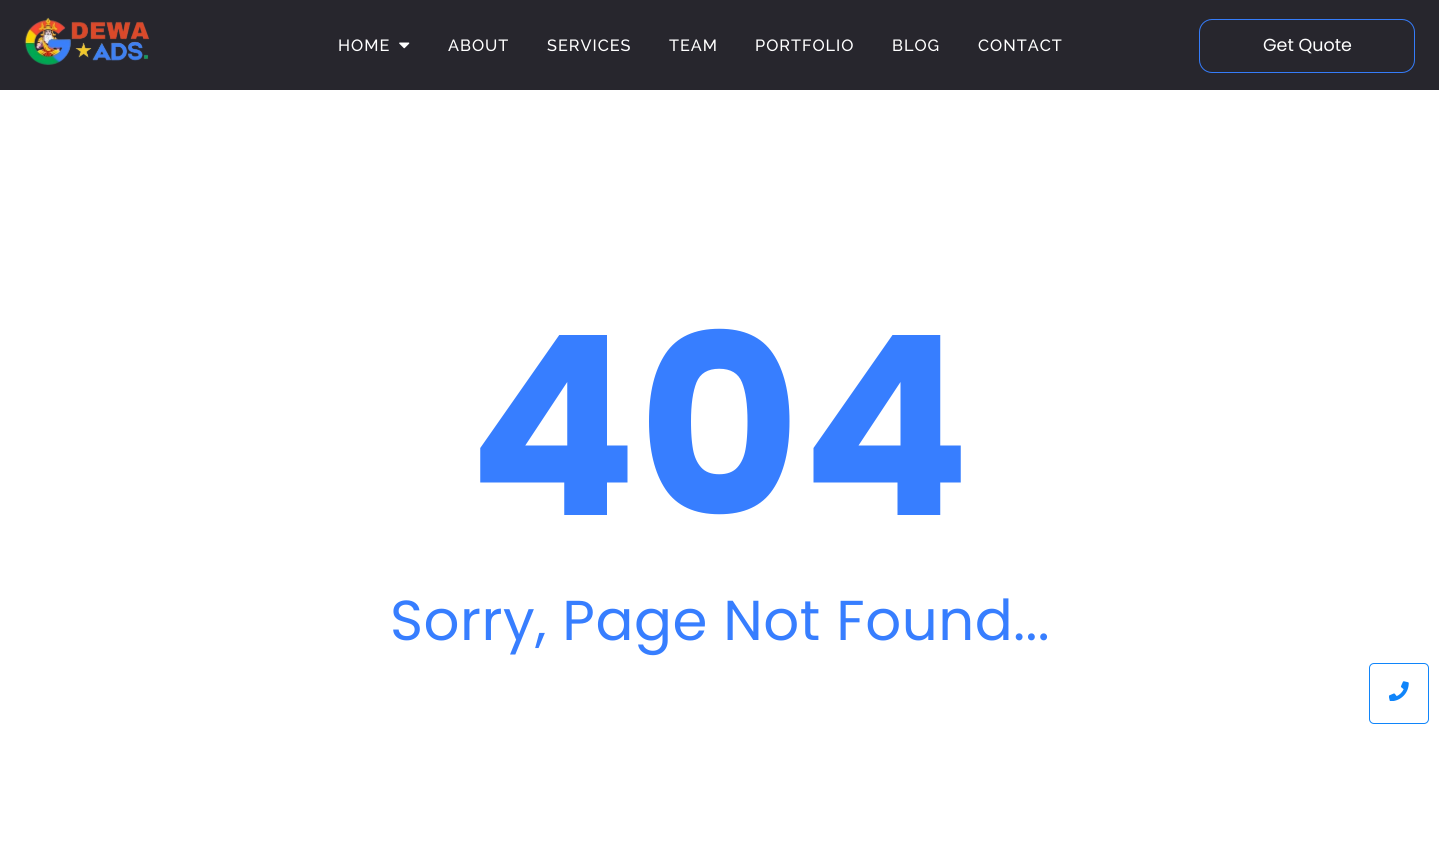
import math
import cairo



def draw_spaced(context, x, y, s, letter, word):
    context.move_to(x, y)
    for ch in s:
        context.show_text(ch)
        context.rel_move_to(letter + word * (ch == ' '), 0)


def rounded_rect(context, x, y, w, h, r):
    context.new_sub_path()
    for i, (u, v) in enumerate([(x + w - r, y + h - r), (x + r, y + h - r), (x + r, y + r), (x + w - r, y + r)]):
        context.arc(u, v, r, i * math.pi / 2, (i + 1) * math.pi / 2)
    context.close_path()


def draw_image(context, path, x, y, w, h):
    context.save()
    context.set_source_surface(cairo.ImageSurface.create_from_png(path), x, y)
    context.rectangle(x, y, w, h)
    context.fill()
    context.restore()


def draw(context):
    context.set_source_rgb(1, 1, 1)
    context.paint()
    context.set_source_rgb(39 / 255, 38 / 255, 45 / 255)
    context.rectangle(0, 0, 1439, 90)
    context.fill()
    draw_image(context, "images/1.png", 24, 17, 126, 48)
    draw_image(context, "images/2.png", 399, 42, 11, 7)
    rounded_rect(context, 1199.5, 19.5, 215, 53, 12.5)
    context.set_source_rgb(53 / 255, 124 / 255, 249 / 255)
    context.set_line_width(1)
    context.stroke()
    rounded_rect(context, 1369.5, 663.5, 59, 60, 4.5)
    context.set_source_rgb(16 / 255, 133 / 255, 250 / 255)
    context.stroke()
    draw_image(context, "images/3.png", 1389, 681, 20, 20)
    context.select_font_face("Raleway Medium")
    context.set_font_size(16.25)
    context.set_source_rgb(1, 1, 1)
    draw_spaced(context, 338, 51, "HOME", 1, 0)
    draw_spaced(context, 448, 51, "ABOUT", 1, 0)
    draw_spaced(context, 547, 51, "SERVICES", 1, 0)
    draw_spaced(context, 669, 51, "TEAM", 1, 0)
    draw_spaced(context, 755, 51, "PORTFOLIO", 1, 0)
    draw_spaced(context, 892, 51, "BLOG", 1, 0)
    draw_spaced(context, 978, 51, "CONTACT", 1, 0)
    context.select_font_face("Poppins")
    context.set_font_size(17.5)
    context.move_to(1263, 51)
    context.show_text("Get Quote")
    context.select_font_face("Poppins", cairo.FontSlant.NORMAL, cairo.FontWeight.BOLD)
    context.set_font_size(250)
    context.set_source_rgb(55 / 255, 126 / 255, 1)
    draw_spaced(context, 468, 515, "404", 0.5, 0)
    context.select_font_face("Poppins")
    context.set_font_size(56.25)
    draw_spaced(context, 390, 640, "Sorry, Page Not Found...", 0.5, 0)


surface = cairo.ImageSurface(cairo.Format.RGB24, 1439, 846)
context = cairo.Context(surface)
options = cairo.FontOptions()
options.set_hint_metrics(cairo.HintMetrics.OFF)
options.set_hint_style(cairo.HintStyle.NONE)
context.set_font_options(options)
context.set_miter_limit(4)
draw(context)
surface.write_to_png("out.png")
